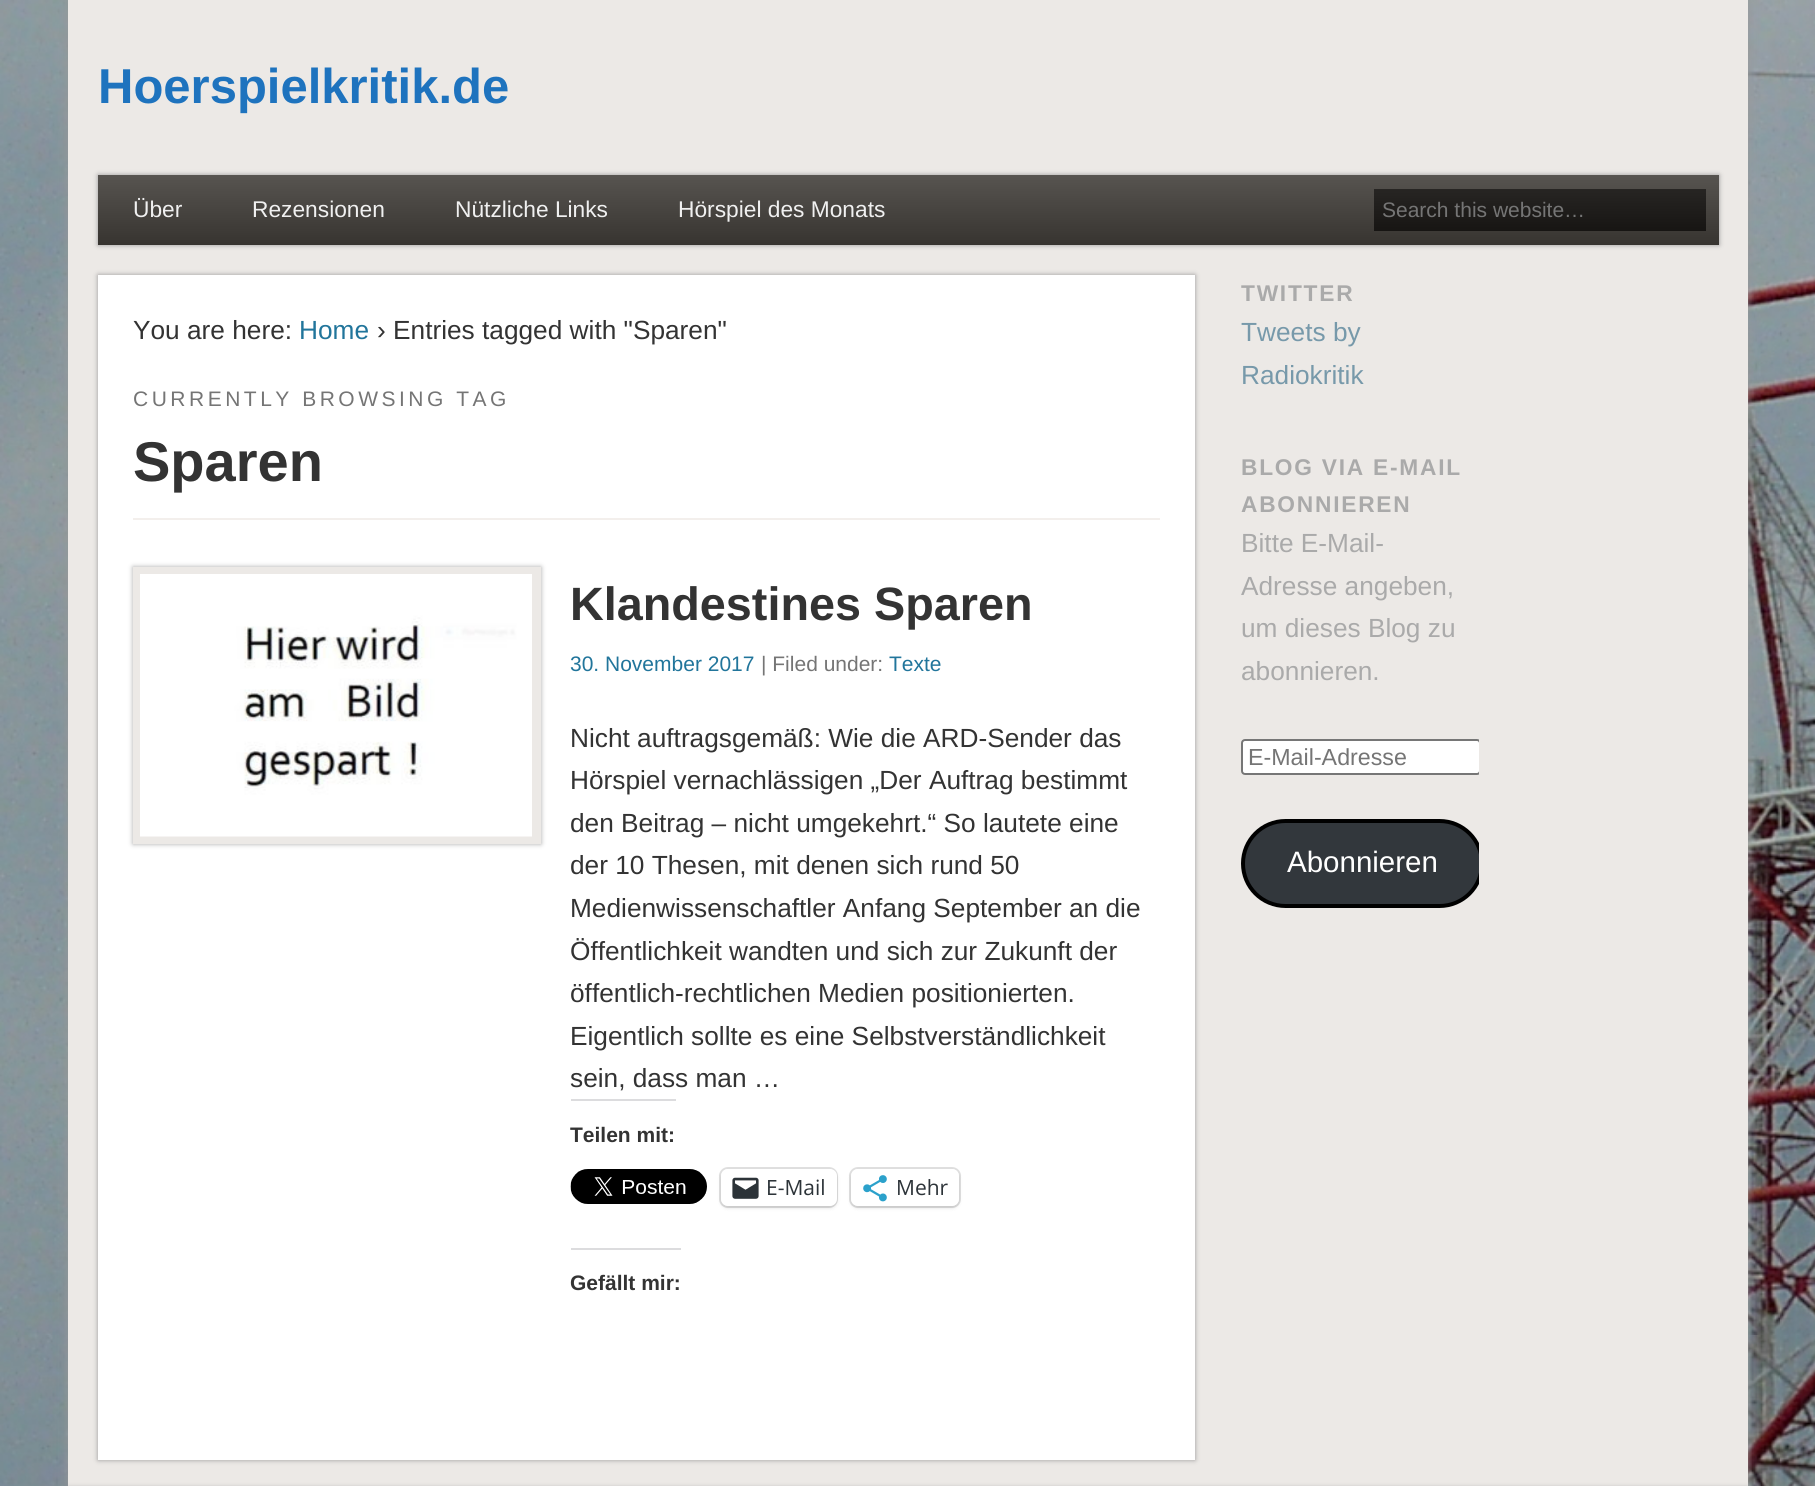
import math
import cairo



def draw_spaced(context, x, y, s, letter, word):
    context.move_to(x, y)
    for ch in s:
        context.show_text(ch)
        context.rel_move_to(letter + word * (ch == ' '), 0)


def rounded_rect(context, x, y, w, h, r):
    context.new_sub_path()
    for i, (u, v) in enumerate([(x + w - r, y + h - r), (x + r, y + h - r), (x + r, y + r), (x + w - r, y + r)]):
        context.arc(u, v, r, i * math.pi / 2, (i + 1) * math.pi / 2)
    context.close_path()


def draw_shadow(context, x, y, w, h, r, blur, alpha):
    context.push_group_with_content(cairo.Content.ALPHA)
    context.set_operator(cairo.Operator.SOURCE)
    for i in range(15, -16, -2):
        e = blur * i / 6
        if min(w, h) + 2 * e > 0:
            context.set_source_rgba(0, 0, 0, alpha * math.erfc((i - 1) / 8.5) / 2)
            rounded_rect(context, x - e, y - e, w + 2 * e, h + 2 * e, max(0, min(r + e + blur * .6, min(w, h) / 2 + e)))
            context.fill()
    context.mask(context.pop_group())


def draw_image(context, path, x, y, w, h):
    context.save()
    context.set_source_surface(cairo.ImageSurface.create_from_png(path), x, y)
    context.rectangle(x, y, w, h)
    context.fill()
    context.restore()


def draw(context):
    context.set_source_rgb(1, 1, 1)
    context.paint()
    draw_image(context, "images/1.png", 0, 0, 1815, 1486)
    context.set_source_rgb(153 / 255, 153 / 255, 153 / 255)
    draw_shadow(context, 68, 0, 1680, 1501, 0, 5, 1)
    context.set_source_rgb(236 / 255, 233 / 255, 230 / 255)
    context.rectangle(68, 0, 1680, 1486)
    context.fill()
    context.set_source_rgb(153 / 255, 153 / 255, 153 / 255)
    draw_shadow(context, 98, 175, 1621, 70, 0, 2.5, 1)
    gradient = cairo.LinearGradient(908, 175, 908, 315)
    gradient.add_color_stop_rgba(0, 87 / 255, 84 / 255, 80 / 255, 1)
    gradient.add_color_stop_rgba(0.5, 55 / 255, 52 / 255, 48 / 255, 1)
    gradient.add_color_stop_rgba(0.5, 87 / 255, 84 / 255, 80 / 255, 1)
    gradient.add_color_stop_rgba(1, 55 / 255, 52 / 255, 48 / 255, 1)
    context.set_source(gradient)
    context.rectangle(98, 175, 1621, 70)
    context.fill()
    gradient = cairo.LinearGradient(1540, 189, 1540, 231)
    gradient.add_color_stop_rgba(0, 39 / 255, 37 / 255, 35 / 255, 1)
    gradient.add_color_stop_rgba(1, 23 / 255, 21 / 255, 19 / 255, 1)
    context.set_source(gradient)
    context.rectangle(1374, 189, 332, 42)
    context.fill()
    context.set_source_rgb(153 / 255, 153 / 255, 153 / 255)
    draw_shadow(context, 98, 275, 1097, 1185, 0, 2.5, 1)
    context.set_source_rgb(1, 1, 1)
    context.rectangle(98, 275, 1097, 1185)
    context.fill()
    context.set_source_rgb(243 / 255, 239 / 255, 236 / 255)
    context.rectangle(133, 518, 1027, 2)
    context.fill()
    context.set_source_rgb(170 / 255, 170 / 255, 170 / 255)
    draw_shadow(context, 133, 567, 408, 277, 0, 2.5, 1)
    context.set_source_rgb(236 / 255, 233 / 255, 230 / 255)
    context.rectangle(133, 567, 408, 277)
    context.fill()
    draw_image(context, "images/2.png", 140, 574, 392, 263)
    context.set_source_rgb(220 / 255, 220 / 255, 222 / 255)
    context.rectangle(571, 1099, 105, 2)
    context.fill()
    draw_image(context, "images/3.png", 570, 1169, 137, 35)
    rounded_rect(context, 720, 1168, 117, 39, 8)
    context.set_source_rgb(224 / 255, 224 / 255, 224 / 255)
    context.stroke()
    context.set_source_rgb(0, 0, 0)
    draw_shadow(context, 721, 1171, 116, 37, 7, 2, 0.12)
    context.set_source_rgb(1, 1, 1)
    rounded_rect(context, 721, 1169, 116, 37, 7)
    context.fill()
    draw_image(context, "images/4.png", 732, 1177, 27, 22)
    rounded_rect(context, 850, 1168, 110, 39, 8)
    context.set_source_rgb(224 / 255, 224 / 255, 224 / 255)
    context.stroke()
    context.set_source_rgb(0, 0, 0)
    draw_shadow(context, 851, 1171, 108, 37, 7, 2, 0.12)
    context.set_source_rgb(1, 1, 1)
    rounded_rect(context, 851, 1169, 108, 37, 7)
    context.fill()
    draw_image(context, "images/5.png", 863, 1175, 24, 27)
    context.set_source_rgb(220 / 255, 220 / 255, 222 / 255)
    context.rectangle(571, 1248, 110, 2)
    context.fill()
    context.save()
    context.rectangle(1241, 450, 238, 500)
    context.clip()
    context.set_source_rgb(1, 1, 1)
    rounded_rect(context, 1242, 740, 238, 34, 3)
    context.fill_preserve()
    context.set_source_rgb(118 / 255, 118 / 255, 118 / 255)
    context.stroke()
    context.set_source_rgb(50 / 255, 55 / 255, 60 / 255)
    rounded_rect(context, 1243, 821, 239, 85, 42.5)
    context.fill_preserve()
    context.set_source_rgb(0, 0, 0)
    context.set_line_width(4)
    context.stroke()
    context.restore()
    context.save()
    context.rectangle(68, 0, 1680, 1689)
    context.clip()
    context.set_source_rgb(153 / 255, 153 / 255, 153 / 255)
    draw_shadow(context, 68, 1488, 1680, 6, 0, 2.5, 1)
    context.restore()
    context.select_font_face("Liberation Sans", cairo.FontSlant.NORMAL, cairo.FontWeight.BOLD)
    context.set_font_size(49)
    context.set_source_rgb(30 / 255, 115 / 255, 190 / 255)
    context.move_to(98, 103)
    context.show_text("Hoerspielkritik.de")
    context.select_font_face("Liberation Sans")
    context.set_font_size(22.75)
    context.set_source_rgb(240 / 255, 240 / 255, 240 / 255)
    context.move_to(133, 217)
    context.show_text("Über")
    context.move_to(252, 217)
    context.show_text("Rezensionen")
    context.move_to(455, 217)
    context.show_text("Nützliche Links")
    context.move_to(678, 217)
    context.show_text("Hörspiel des Monats")
    context.set_font_size(21)
    context.set_source_rgb(117 / 255, 117 / 255, 117 / 255)
    context.move_to(1382, 217)
    context.show_text("Search this website…")
    context.set_font_size(26.25)
    context.set_source_rgb(51 / 255, 51 / 255, 51 / 255)
    context.move_to(133, 339)
    context.show_text("You are here:")
    context.set_source_rgb(33 / 255, 117 / 255, 155 / 255)
    context.move_to(299, 339)
    context.show_text("Home")
    context.set_source_rgb(51 / 255, 51 / 255, 51 / 255)
    context.move_to(377, 339)
    context.show_text("› Entries tagged with \"Sparen\"")
    context.set_font_size(21)
    context.set_source_rgb(117 / 255, 117 / 255, 117 / 255)
    draw_spaced(context, 133, 406, "CURRENTLY BROWSING TAG", 3.5, 0)
    context.select_font_face("Liberation Sans", cairo.FontSlant.NORMAL, cairo.FontWeight.BOLD)
    context.set_font_size(56)
    context.set_source_rgb(51 / 255, 51 / 255, 51 / 255)
    context.move_to(133, 481)
    context.show_text("Sparen")
    context.set_font_size(46.75)
    context.move_to(570, 620)
    context.show_text("Klandestines Sparen")
    context.select_font_face("Liberation Sans")
    context.set_font_size(21)
    context.set_source_rgb(33 / 255, 117 / 255, 155 / 255)
    context.move_to(570, 671)
    context.show_text("30. November 2017")
    context.set_source_rgb(117 / 255, 117 / 255, 117 / 255)
    context.move_to(761, 671)
    context.show_text("| Filed under:")
    context.set_source_rgb(33 / 255, 117 / 255, 155 / 255)
    context.move_to(889, 671)
    context.show_text("Texte")
    context.set_font_size(26.25)
    context.set_source_rgb(51 / 255, 51 / 255, 51 / 255)
    context.move_to(570, 747)
    context.show_text("Nicht auftragsgemäß: Wie die ARD-Sender das")
    context.move_to(570, 789)
    context.show_text("Hörspiel vernachlässigen „Der Auftrag bestimmt")
    context.move_to(570, 832)
    context.show_text("den Beitrag – nicht umgekehrt.“ So lautete eine")
    context.move_to(570, 874)
    context.show_text("der 10 Thesen, mit denen sich rund 50")
    context.move_to(570, 917)
    context.show_text("Medienwissenschaftler Anfang September an die")
    context.move_to(570, 960)
    context.show_text("Öffentlichkeit wandten und sich zur Zukunft der")
    context.move_to(570, 1002)
    context.show_text("öffentlich-rechtlichen Medien positionierten.")
    context.move_to(570, 1045)
    context.show_text("Eigentlich sollte es eine Selbstverständlichkeit")
    context.move_to(570, 1087)
    context.show_text("sein, dass man …")
    context.select_font_face("Liberation Sans", cairo.FontSlant.NORMAL, cairo.FontWeight.BOLD)
    context.set_font_size(21)
    context.move_to(570, 1142)
    context.show_text("Teilen mit:")
    context.select_font_face("Open Sans")
    context.set_source_rgb(44 / 255, 51 / 255, 56 / 255)
    context.move_to(766, 1195)
    context.show_text("E-Mail")
    context.move_to(896, 1195)
    context.show_text("Mehr")
    context.select_font_face("Liberation Sans", cairo.FontSlant.NORMAL, cairo.FontWeight.BOLD)
    context.set_source_rgb(51 / 255, 51 / 255, 51 / 255)
    context.move_to(570, 1290)
    context.show_text("Gefällt mir:")
    context.set_font_size(22.75)
    context.set_source_rgb(170 / 255, 170 / 255, 170 / 255)
    draw_spaced(context, 1241, 301, "TWITTER", 1.75, 0)
    context.select_font_face("Liberation Sans")
    context.set_font_size(26.25)
    context.set_source_rgb(119 / 255, 153 / 255, 170 / 255)
    context.move_to(1241, 341)
    context.show_text("Tweets by")
    context.move_to(1241, 384)
    context.show_text("Radiokritik")
    context.select_font_face("Liberation Sans", cairo.FontSlant.NORMAL, cairo.FontWeight.BOLD)
    context.set_font_size(22.75)
    context.set_source_rgb(170 / 255, 170 / 255, 170 / 255)
    draw_spaced(context, 1241, 475, "BLOG VIA E-MAIL", 1.75, 0)
    draw_spaced(context, 1241, 512, "ABONNIEREN", 1.75, 0)
    context.select_font_face("Liberation Sans")
    context.set_font_size(26.25)
    context.move_to(1241, 552)
    context.show_text("Bitte E-Mail-")
    context.move_to(1241, 595)
    context.show_text("Adresse angeben,")
    context.move_to(1241, 637)
    context.show_text("um dieses Blog zu")
    context.move_to(1241, 680)
    context.show_text("abonnieren.")
    context.set_font_size(23.25)
    context.set_source_rgb(117 / 255, 117 / 255, 117 / 255)
    context.move_to(1248, 765)
    context.show_text("E-Mail-Adresse")
    context.set_font_size(29.5)
    context.set_source_rgb(1, 1, 1)
    context.move_to(1287, 872)
    context.show_text("Abonnieren")


surface = cairo.ImageSurface(cairo.Format.RGB24, 1815, 1486)
context = cairo.Context(surface)
options = cairo.FontOptions()
options.set_hint_metrics(cairo.HintMetrics.OFF)
options.set_hint_style(cairo.HintStyle.NONE)
context.set_font_options(options)
context.set_miter_limit(4)
draw(context)
surface.write_to_png("out.png")
